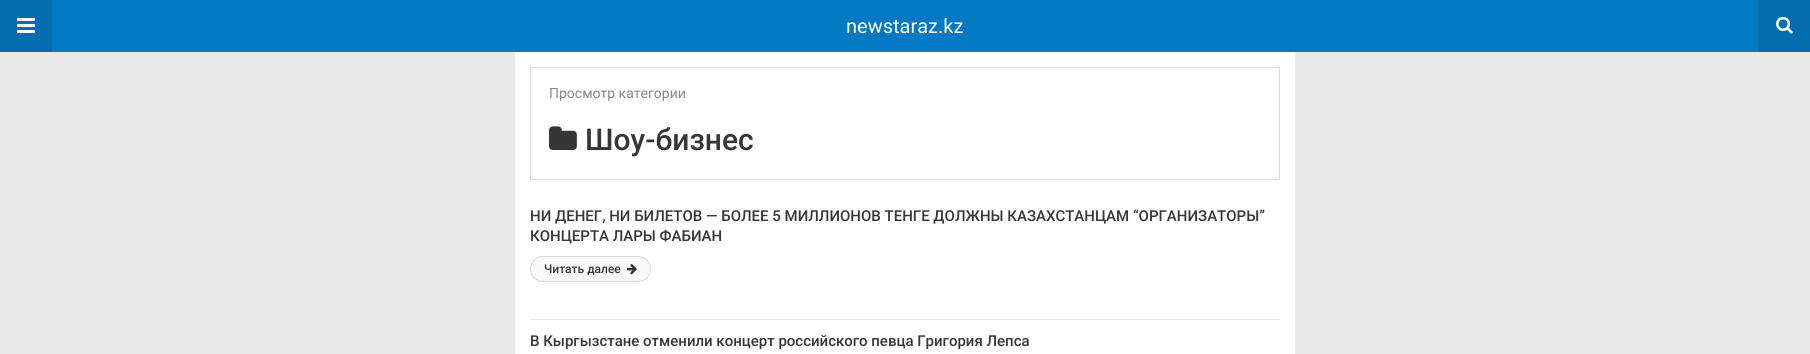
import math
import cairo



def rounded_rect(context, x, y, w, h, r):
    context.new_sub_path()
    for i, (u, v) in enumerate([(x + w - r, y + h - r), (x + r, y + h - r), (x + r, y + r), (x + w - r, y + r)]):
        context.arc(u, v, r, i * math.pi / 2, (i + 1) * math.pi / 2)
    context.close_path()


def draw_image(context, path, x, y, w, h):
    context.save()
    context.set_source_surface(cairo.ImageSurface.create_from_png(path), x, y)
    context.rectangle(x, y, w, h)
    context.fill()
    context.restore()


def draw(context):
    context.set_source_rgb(232 / 255, 232 / 255, 232 / 255)
    context.paint()
    context.set_source_rgb(1, 1, 1)
    context.rectangle(515, 52, 780, 302)
    context.fill()
    context.set_source_rgb(3 / 255, 121 / 255, 196 / 255)
    context.rectangle(52, 0, 1706, 52)
    context.fill()
    context.set_source_rgb(3 / 255, 109 / 255, 176 / 255)
    context.rectangle(0, 0, 52, 52)
    context.fill()
    draw_image(context, "images/1.png", 17, 18, 18, 15)
    context.rectangle(1758, 0, 52, 52)
    context.fill()
    draw_image(context, "images/2.png", 1776, 16, 17, 18)
    context.rectangle(530.5, 67.5, 749, 112)
    context.set_source_rgb(220 / 255, 220 / 255, 220 / 255)
    context.set_line_width(1)
    context.stroke()
    draw_image(context, "images/3.png", 549, 126, 28, 24)
    context.set_source_rgb(230 / 255, 230 / 255, 230 / 255)
    context.rectangle(530, 319, 750, 1)
    context.fill()
    context.set_source_rgb(249 / 255, 249 / 255, 249 / 255)
    rounded_rect(context, 530.5, 256.5, 120, 25, 12.5)
    context.fill_preserve()
    context.set_source_rgb(216 / 255, 216 / 255, 216 / 255)
    context.stroke()
    draw_image(context, "images/4.png", 627, 264, 10, 11)
    context.select_font_face("Roboto")
    context.set_font_size(20)
    context.set_source_rgb(1, 1, 1)
    context.move_to(846, 33)
    context.show_text("newstaraz.kz")
    context.set_font_size(14)
    context.set_source_rgb(134 / 255, 134 / 255, 134 / 255)
    context.move_to(549, 98)
    context.show_text("Просмотр категории")
    context.select_font_face("Roboto Medium")
    context.set_font_size(30)
    context.set_source_rgb(54 / 255, 54 / 255, 54 / 255)
    context.move_to(585, 150)
    context.show_text("Шоу-бизнес")
    context.set_font_size(15)
    context.move_to(530, 221)
    context.show_text("НИ ДЕНЕГ, НИ БИЛЕТОВ — БОЛЕЕ 5 МИЛЛИОНОВ ТЕНГЕ ДОЛЖНЫ КАЗАХСТАНЦАМ “ОРГАНИЗАТОРЫ”")
    context.move_to(530, 241)
    context.show_text("КОНЦЕРТА ЛАРЫ ФАБИАН")
    context.set_font_size(12)
    context.move_to(544, 273)
    context.show_text("Читать далее")
    context.set_font_size(15)
    context.move_to(530, 346)
    context.show_text("В Кыргызстане отменили концерт российского певца Григория Лепса")


surface = cairo.ImageSurface(cairo.Format.RGB24, 1810, 354)
context = cairo.Context(surface)
options = cairo.FontOptions()
options.set_hint_metrics(cairo.HintMetrics.OFF)
options.set_hint_style(cairo.HintStyle.NONE)
context.set_font_options(options)
context.set_miter_limit(4)
draw(context)
surface.write_to_png("out.png")
